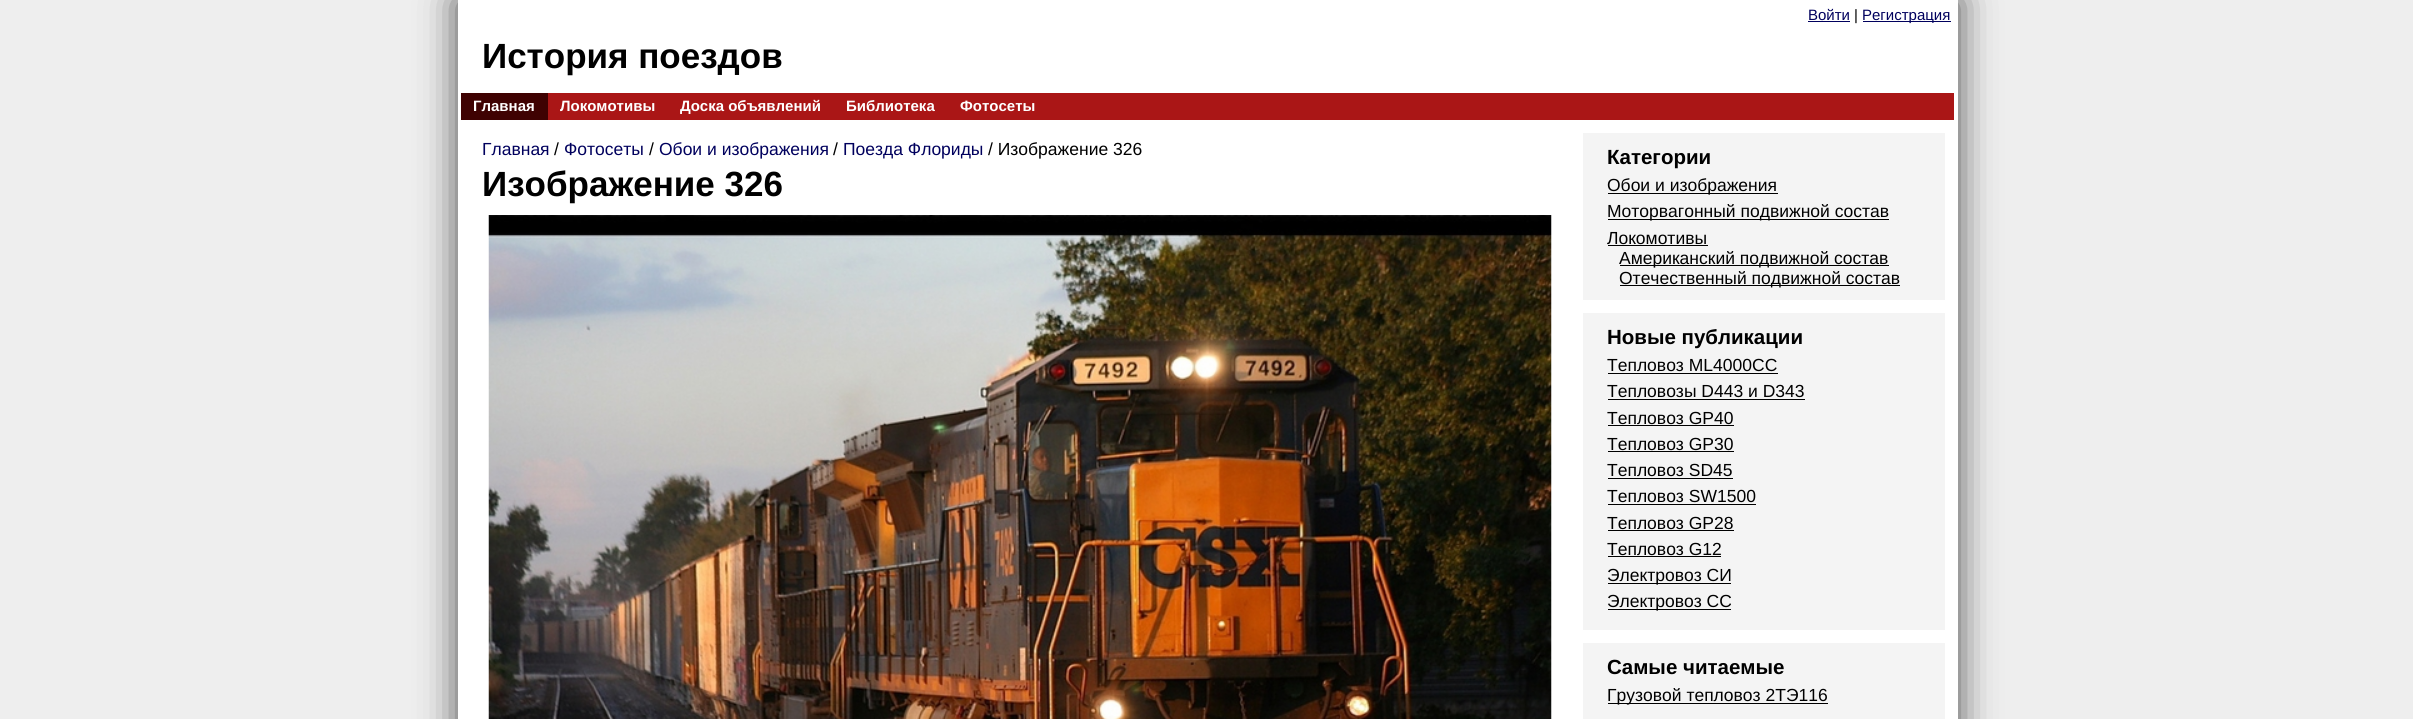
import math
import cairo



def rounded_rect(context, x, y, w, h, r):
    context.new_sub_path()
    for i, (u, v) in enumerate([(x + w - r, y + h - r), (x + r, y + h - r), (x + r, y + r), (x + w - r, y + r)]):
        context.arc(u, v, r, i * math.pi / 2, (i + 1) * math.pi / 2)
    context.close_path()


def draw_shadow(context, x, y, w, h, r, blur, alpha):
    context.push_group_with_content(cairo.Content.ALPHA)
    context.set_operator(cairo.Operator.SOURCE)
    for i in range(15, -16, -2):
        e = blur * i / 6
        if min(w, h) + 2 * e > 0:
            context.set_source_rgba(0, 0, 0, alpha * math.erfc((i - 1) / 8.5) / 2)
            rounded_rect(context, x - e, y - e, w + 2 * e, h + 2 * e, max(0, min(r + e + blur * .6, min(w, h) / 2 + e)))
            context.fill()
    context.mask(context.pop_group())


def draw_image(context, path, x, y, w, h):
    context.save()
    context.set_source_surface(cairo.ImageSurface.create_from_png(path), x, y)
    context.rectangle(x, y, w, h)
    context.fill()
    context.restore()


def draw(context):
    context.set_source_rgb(238 / 255, 238 / 255, 238 / 255)
    context.paint()
    context.set_source_rgb(3 / 255, 3 / 255, 3 / 255)
    draw_shadow(context, 458, 0, 1500, 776, 0, 19, 0.7)
    context.set_source_rgb(1, 1, 1)
    context.rectangle(458, 0, 1500, 719)
    context.fill()
    context.set_source_rgb(0, 0, 93 / 255)
    context.rectangle(1808, 21, 42, 1)
    context.fill()
    context.rectangle(1863, 21, 88, 1)
    context.fill()
    context.set_source_rgb(170 / 255, 22 / 255, 22 / 255)
    context.rectangle(548, 93, 1406, 27)
    context.fill()
    context.set_source_rgb(63 / 255, 2 / 255, 2 / 255)
    context.rectangle(461, 93, 87, 27)
    context.fill()
    draw_image(context, "images/1.png", 488, 215, 1064, 504)
    context.set_source_rgb(244 / 255, 244 / 255, 244 / 255)
    context.rectangle(1583, 133, 362, 167)
    context.fill()
    context.set_source_rgb(0, 0, 0)
    context.rectangle(1608, 193, 170, 1)
    context.fill()
    context.rectangle(1608, 219, 281, 1)
    context.fill()
    context.rectangle(1608, 245, 100, 1)
    context.fill()
    context.rectangle(1620, 265, 269, 1)
    context.fill()
    context.rectangle(1620, 285, 280, 1)
    context.fill()
    context.set_source_rgb(244 / 255, 244 / 255, 244 / 255)
    context.rectangle(1583, 313, 362, 317)
    context.fill()
    context.set_source_rgb(0, 0, 0)
    context.rectangle(1608, 373, 170, 1)
    context.fill()
    context.rectangle(1608, 399, 197, 1)
    context.fill()
    context.rectangle(1608, 425, 126, 1)
    context.fill()
    context.rectangle(1608, 451, 126, 1)
    context.fill()
    context.rectangle(1608, 478, 125, 1)
    context.fill()
    context.rectangle(1608, 504, 148, 1)
    context.fill()
    context.rectangle(1608, 530, 126, 1)
    context.fill()
    context.rectangle(1608, 556, 113, 1)
    context.fill()
    context.rectangle(1608, 583, 123, 1)
    context.fill()
    context.rectangle(1608, 609, 123, 1)
    context.fill()
    context.set_source_rgb(244 / 255, 244 / 255, 244 / 255)
    context.rectangle(1583, 643, 362, 76)
    context.fill()
    context.set_source_rgb(0, 0, 0)
    context.rectangle(1608, 703, 220, 1)
    context.fill()
    context.select_font_face("Liberation Sans")
    context.set_font_size(15)
    context.set_source_rgb(0, 0, 93 / 255)
    context.move_to(1808, 20)
    context.show_text("Войти")
    context.set_source_rgb(0, 0, 0)
    context.move_to(1854, 20)
    context.show_text("|")
    context.set_source_rgb(0, 0, 93 / 255)
    context.move_to(1862, 20)
    context.show_text("Регистрация")
    context.select_font_face("Liberation Sans", cairo.FontSlant.NORMAL, cairo.FontWeight.BOLD)
    context.set_font_size(35)
    context.set_source_rgb(0, 0, 0)
    context.move_to(482, 68)
    context.show_text("История поездов")
    context.set_font_size(15)
    context.set_source_rgb(1, 1, 1)
    context.move_to(473, 111)
    context.show_text("Главная")
    context.move_to(560, 111)
    context.show_text("Локомотивы")
    context.move_to(680, 111)
    context.show_text("Доска объявлений")
    context.move_to(846, 111)
    context.show_text("Библиотека")
    context.move_to(960, 111)
    context.show_text("Фотосеты")
    context.select_font_face("Liberation Sans")
    context.set_font_size(17.5)
    context.set_source_rgb(0, 0, 93 / 255)
    context.move_to(482, 155)
    context.show_text("Главная")
    context.set_source_rgb(0, 0, 0)
    context.move_to(554, 155)
    context.show_text("/")
    context.set_source_rgb(0, 0, 93 / 255)
    context.move_to(564, 155)
    context.show_text("Фотосеты")
    context.set_source_rgb(0, 0, 0)
    context.move_to(649, 155)
    context.show_text("/")
    context.set_source_rgb(0, 0, 93 / 255)
    context.move_to(659, 155)
    context.show_text("Обои и изображения")
    context.set_source_rgb(0, 0, 0)
    context.move_to(833, 155)
    context.show_text("/")
    context.set_source_rgb(0, 0, 93 / 255)
    context.move_to(843, 155)
    context.show_text("Поезда Флориды")
    context.set_source_rgb(0, 0, 0)
    context.move_to(988, 155)
    context.show_text("/ Изображение 326")
    context.select_font_face("Liberation Sans", cairo.FontSlant.NORMAL, cairo.FontWeight.BOLD)
    context.set_font_size(35)
    context.move_to(482, 196)
    context.show_text("Изображение 326")
    context.set_font_size(20.5)
    context.move_to(1607, 164)
    context.show_text("Категории")
    context.select_font_face("Liberation Sans")
    context.set_font_size(17.5)
    context.move_to(1607, 191)
    context.show_text("Обои и изображения")
    context.move_to(1607, 217)
    context.show_text("Моторвагонный подвижной состав")
    context.move_to(1607, 244)
    context.show_text("Локомотивы")
    context.move_to(1619, 264)
    context.show_text("Американский подвижной состав")
    context.move_to(1619, 284)
    context.show_text("Отечественный подвижной состав")
    context.select_font_face("Liberation Sans", cairo.FontSlant.NORMAL, cairo.FontWeight.BOLD)
    context.set_font_size(20.5)
    context.move_to(1607, 344)
    context.show_text("Новые публикации")
    context.select_font_face("Liberation Sans")
    context.set_font_size(17.5)
    context.move_to(1607, 371)
    context.show_text("Тепловоз ML4000CC")
    context.move_to(1607, 397)
    context.show_text("Тепловозы D443 и D343")
    context.move_to(1607, 424)
    context.show_text("Тепловоз GP40")
    context.move_to(1607, 450)
    context.show_text("Тепловоз GP30")
    context.move_to(1607, 476)
    context.show_text("Тепловоз SD45")
    context.move_to(1607, 502)
    context.show_text("Тепловоз SW1500")
    context.move_to(1607, 529)
    context.show_text("Тепловоз GP28")
    context.move_to(1607, 555)
    context.show_text("Тепловоз G12")
    context.move_to(1607, 581)
    context.show_text("Электровоз СИ")
    context.move_to(1607, 607)
    context.show_text("Электровоз СС")
    context.select_font_face("Liberation Sans", cairo.FontSlant.NORMAL, cairo.FontWeight.BOLD)
    context.set_font_size(20.5)
    context.move_to(1607, 674)
    context.show_text("Самые читаемые")
    context.select_font_face("Liberation Sans")
    context.set_font_size(17.5)
    context.move_to(1607, 701)
    context.show_text("Грузовой тепловоз 2ТЭ116")


surface = cairo.ImageSurface(cairo.Format.RGB24, 2413, 719)
context = cairo.Context(surface)
options = cairo.FontOptions()
options.set_hint_metrics(cairo.HintMetrics.OFF)
options.set_hint_style(cairo.HintStyle.NONE)
context.set_font_options(options)
context.set_miter_limit(4)
draw(context)
surface.write_to_png("out.png")
